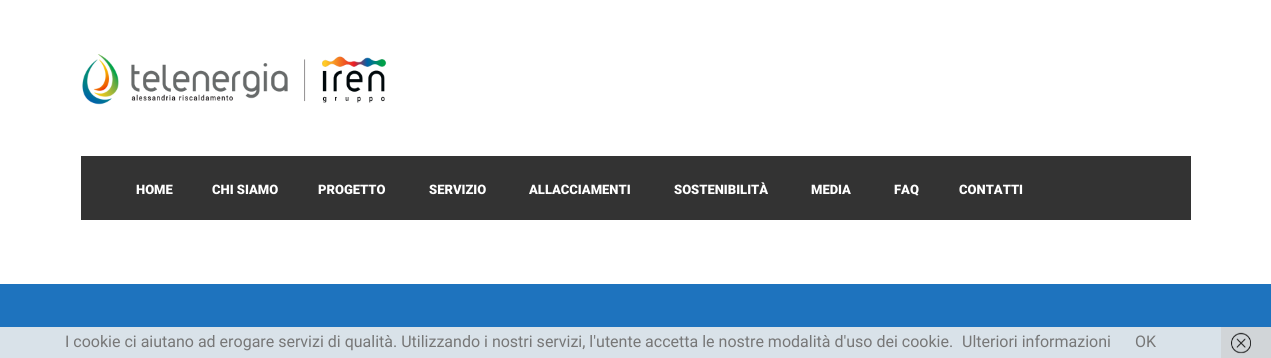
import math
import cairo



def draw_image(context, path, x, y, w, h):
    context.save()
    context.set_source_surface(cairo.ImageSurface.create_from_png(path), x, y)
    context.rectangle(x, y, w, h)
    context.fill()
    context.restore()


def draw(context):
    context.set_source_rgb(1, 1, 1)
    context.paint()
    draw_image(context, "images/1.png", 82, 54, 305, 51)
    context.set_source_rgb(51 / 255, 51 / 255, 51 / 255)
    context.rectangle(81, 156, 1110, 64)
    context.fill()
    context.set_source_rgb(30 / 255, 115 / 255, 190 / 255)
    context.rectangle(0, 284, 1271, 43)
    context.fill()
    context.set_source_rgb(217 / 255, 226 / 255, 233 / 255)
    context.rectangle(0, 327, 1221, 31)
    context.fill()
    context.set_source_rgb(209 / 255, 213 / 255, 216 / 255)
    context.rectangle(1221, 327, 50, 31)
    context.fill()
    draw_image(context, "images/2.png", 1231, 332, 20, 22)
    context.select_font_face("Roboto Black")
    context.set_font_size(13)
    context.set_source_rgb(1, 1, 1)
    context.move_to(136, 194)
    context.show_text("HOME")
    context.move_to(212, 194)
    context.show_text("CHI SIAMO")
    context.move_to(318, 194)
    context.show_text("PROGETTO")
    context.move_to(429, 194)
    context.show_text("SERVIZIO")
    context.move_to(529, 194)
    context.show_text("ALLACCIAMENTI")
    context.move_to(674, 194)
    context.show_text("SOSTENIBILITÀ")
    context.move_to(811, 194)
    context.show_text("MEDIA")
    context.move_to(894, 194)
    context.show_text("FAQ")
    context.move_to(959, 194)
    context.show_text("CONTATTI")
    context.select_font_face("Roboto")
    context.set_font_size(16)
    context.set_source_rgb(119 / 255, 119 / 255, 119 / 255)
    context.move_to(65, 347)
    context.show_text("I cookie ci aiutano ad erogare servizi di qualità. Utilizzando i nostri servizi, l'utente accetta le nostre modalità d'uso dei cookie.")
    context.move_to(962, 347)
    context.show_text("Ulteriori informazioni")
    context.move_to(1135, 347)
    context.show_text("OK")


surface = cairo.ImageSurface(cairo.Format.RGB24, 1271, 358)
context = cairo.Context(surface)
options = cairo.FontOptions()
options.set_hint_metrics(cairo.HintMetrics.OFF)
options.set_hint_style(cairo.HintStyle.NONE)
context.set_font_options(options)
context.set_miter_limit(4)
draw(context)
surface.write_to_png("out.png")
